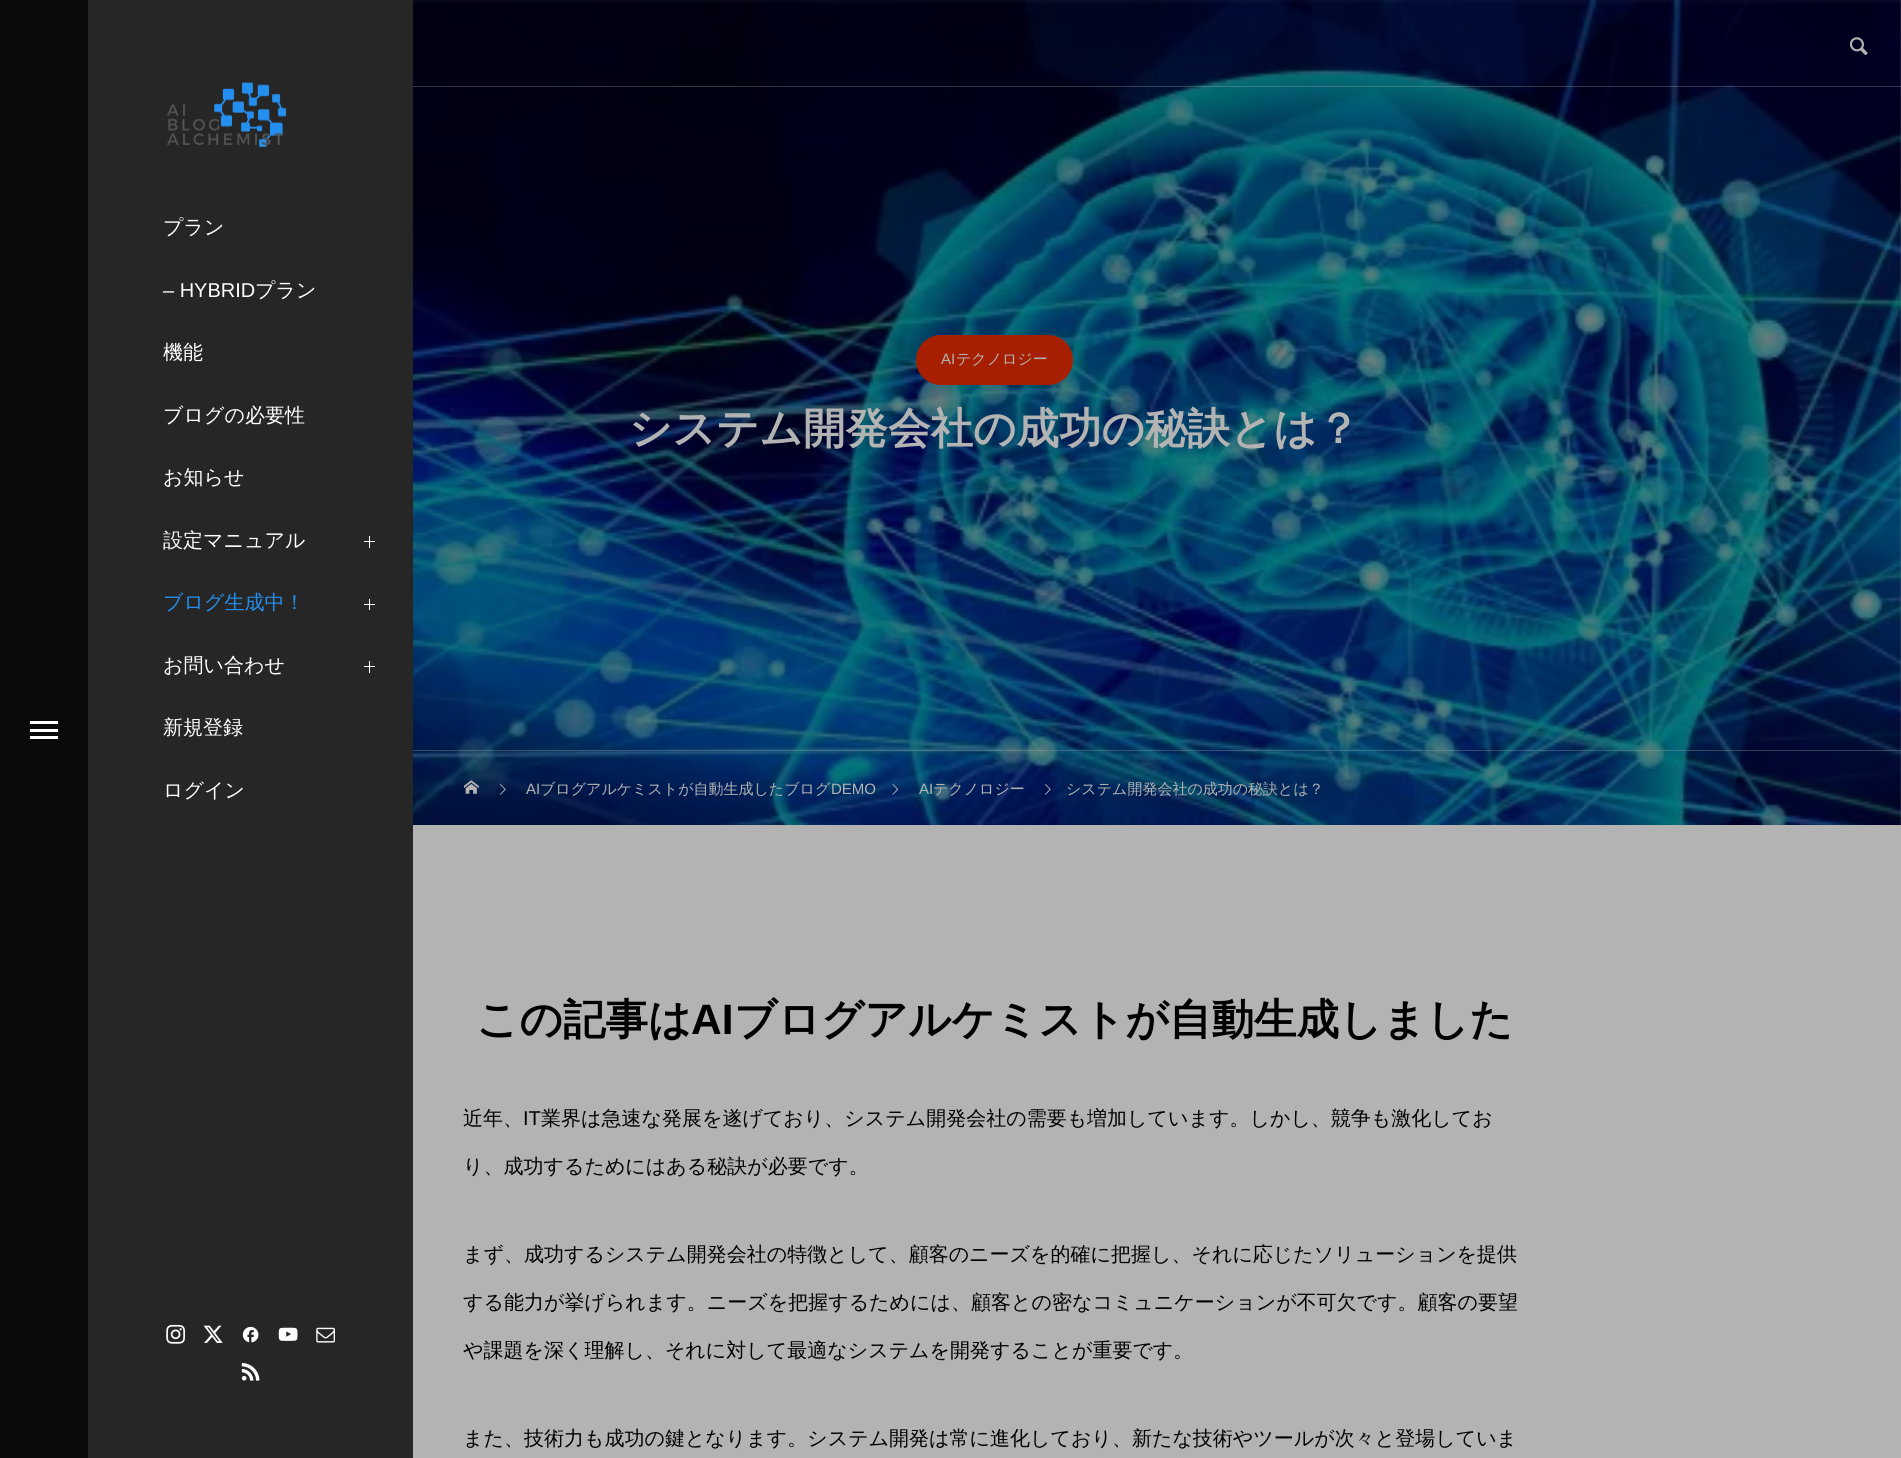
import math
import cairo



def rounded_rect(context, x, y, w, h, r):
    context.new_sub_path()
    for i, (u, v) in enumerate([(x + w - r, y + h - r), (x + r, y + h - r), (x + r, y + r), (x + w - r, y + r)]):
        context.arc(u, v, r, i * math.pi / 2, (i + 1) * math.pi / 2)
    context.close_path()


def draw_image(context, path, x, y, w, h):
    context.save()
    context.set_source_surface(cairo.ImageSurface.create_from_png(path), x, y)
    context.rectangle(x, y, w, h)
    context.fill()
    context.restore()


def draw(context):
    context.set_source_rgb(179 / 255, 179 / 255, 179 / 255)
    context.paint()
    context.set_source_rgb(10 / 255, 10 / 255, 10 / 255)
    context.rectangle(0, 0, 88, 1458)
    context.fill()
    context.set_source_rgb(1, 1, 1)
    context.rectangle(30, 721, 28, 3)
    context.fill()
    context.rectangle(30, 729, 28, 3)
    context.fill()
    context.rectangle(30, 736, 28, 3)
    context.fill()
    context.set_source_rgb(38 / 255, 38 / 255, 38 / 255)
    context.rectangle(88, 0, 325, 1458)
    context.fill()
    draw_image(context, "images/1.png", 167, 82, 120, 65)
    context.set_source_rgb(1, 1, 1)
    context.rectangle(369, 536, 1, 12)
    context.fill()
    context.rectangle(364, 541, 11, 1)
    context.fill()
    context.rectangle(369, 599, 1, 11)
    context.fill()
    context.rectangle(364, 604, 11, 1)
    context.fill()
    context.rectangle(369, 661, 1, 12)
    context.fill()
    context.rectangle(364, 666, 11, 1)
    context.fill()
    draw_image(context, "images/2.png", 166, 1324, 19, 20)
    draw_image(context, "images/3.png", 203, 1325, 20, 18)
    draw_image(context, "images/4.png", 242, 1326, 17, 17)
    draw_image(context, "images/5.png", 278, 1327, 20, 14)
    draw_image(context, "images/6.png", 316, 1327, 19, 16)
    draw_image(context, "images/7.png", 241, 1363, 19, 18)
    draw_image(context, "images/9.png", 413, 0, 1488, 825)
    context.set_source_rgba(179 / 255, 179 / 255, 179 / 255, 0.3)
    context.rectangle(413, 86, 1488, 1)
    context.fill()
    draw_image(context, "images/8.png", 1849, 37, 19, 18)
    context.set_source_rgb(166 / 255, 31 / 255, 0)
    rounded_rect(context, 916, 335, 157, 50, 25)
    context.fill()
    context.set_source_rgba(179 / 255, 179 / 255, 179 / 255, 0.3)
    context.rectangle(413, 750, 1488, 1)
    context.fill()
    draw_image(context, "images/10.png", 464, 780, 15, 14)
    draw_image(context, "images/11.png", 500, 784, 6, 11)
    draw_image(context, "images/12.png", 892, 784, 7, 11)
    draw_image(context, "images/13.png", 1045, 784, 6, 11)
    context.select_font_face("WenQuanYi Zen Hei Medium")
    context.set_font_size(20)
    context.set_source_rgb(1, 1, 1)
    context.move_to(163, 234)
    context.show_text("プラン")
    context.select_font_face("Liberation Sans")
    context.move_to(163, 297)
    context.show_text("– HYBRID")
    context.select_font_face("WenQuanYi Zen Hei Medium")
    context.move_to(255, 297)
    context.show_text("プラン")
    context.move_to(163, 359)
    context.show_text("機能")
    context.move_to(163, 422)
    context.show_text("ブログの必要性")
    context.move_to(163, 484)
    context.show_text("お知らせ")
    context.move_to(163, 547)
    context.show_text("設定マニュアル")
    context.set_source_rgb(36 / 255, 143 / 255, 239 / 255)
    context.move_to(163, 609)
    context.show_text("ブログ生成中！")
    context.set_source_rgb(1, 1, 1)
    context.move_to(163, 672)
    context.show_text("お問い合わせ")
    context.move_to(163, 734)
    context.show_text("新規登録")
    context.move_to(163, 797)
    context.show_text("ログイン")
    context.select_font_face("Liberation Sans")
    context.set_font_size(15)
    context.set_source_rgb(179 / 255, 179 / 255, 179 / 255)
    context.move_to(941, 364)
    context.show_text("AI")
    context.select_font_face("WenQuanYi Zen Hei Medium")
    context.move_to(956, 364)
    context.show_text("テクノロジー")
    context.select_font_face("WenQuanYi Zen Hei", cairo.FontSlant.NORMAL, cairo.FontWeight.BOLD)
    context.set_font_size(42.5)
    context.move_to(629, 443)
    context.show_text("システム開発会社の成功の秘訣とは？")
    context.select_font_face("Liberation Sans")
    context.set_font_size(18)
    context.set_source_rgb(17 / 255, 82 / 255, 109 / 255)
    context.move_to(989, 488)
    context.show_text(".")
    context.set_font_size(15)
    context.set_source_rgb(179 / 255, 179 / 255, 179 / 255)
    context.move_to(526, 794)
    context.show_text("AI")
    context.select_font_face("WenQuanYi Zen Hei Medium")
    context.move_to(540, 794)
    context.show_text("ブログアルケミストが自動生成したブログ")
    context.select_font_face("Liberation Sans")
    context.move_to(831, 794)
    context.show_text("DEMO")
    context.move_to(919, 794)
    context.show_text("AI")
    context.select_font_face("WenQuanYi Zen Hei Medium")
    context.move_to(933, 794)
    context.show_text("テクノロジー")
    context.move_to(1066, 794)
    context.show_text("システム開発会社の成功の秘訣とは？")
    context.select_font_face("WenQuanYi Zen Hei", cairo.FontSlant.NORMAL, cairo.FontWeight.BOLD)
    context.set_font_size(42.5)
    context.set_source_rgb(0, 0, 0)
    context.move_to(476, 1034)
    context.show_text("この記事は")
    context.select_font_face("Liberation Sans", cairo.FontSlant.NORMAL, cairo.FontWeight.BOLD)
    context.move_to(691, 1034)
    context.show_text("AI")
    context.select_font_face("WenQuanYi Zen Hei", cairo.FontSlant.NORMAL, cairo.FontWeight.BOLD)
    context.move_to(734, 1034)
    context.show_text("ブログアルケミストが自動生成しました")
    context.select_font_face("WenQuanYi Zen Hei Medium")
    context.set_font_size(20)
    context.move_to(463, 1125)
    context.show_text("近年、")
    context.select_font_face("Liberation Sans")
    context.move_to(523, 1125)
    context.show_text("IT")
    context.select_font_face("WenQuanYi Zen Hei Medium")
    context.move_to(541, 1125)
    context.show_text("業界は急速な発展を遂げており、システム開発会社の需要も増加しています。しかし、競争も激化してお")
    context.move_to(463, 1173)
    context.show_text("り、成功するためにはある秘訣が必要です。")
    context.move_to(463, 1261)
    context.show_text("まず、成功するシステム開発会社の特徴として、顧客のニーズを的確に把握し、それに応じたソリューションを提供")
    context.move_to(463, 1309)
    context.show_text("する能力が挙げられます。ニーズを把握するためには、顧客との密なコミュニケーションが不可欠です。顧客の要望")
    context.move_to(463, 1357)
    context.show_text("や課題を深く理解し、それに対して最適なシステムを開発することが重要です。")
    context.move_to(463, 1445)
    context.show_text("また、技術力も成功の鍵となります。システム開発は常に進化しており、新たな技術やツールが次々と登場していま")


surface = cairo.ImageSurface(cairo.Format.RGB24, 1901, 1458)
context = cairo.Context(surface)
options = cairo.FontOptions()
options.set_hint_metrics(cairo.HintMetrics.OFF)
options.set_hint_style(cairo.HintStyle.NONE)
context.set_font_options(options)
context.set_miter_limit(4)
draw(context)
surface.write_to_png("out.png")
